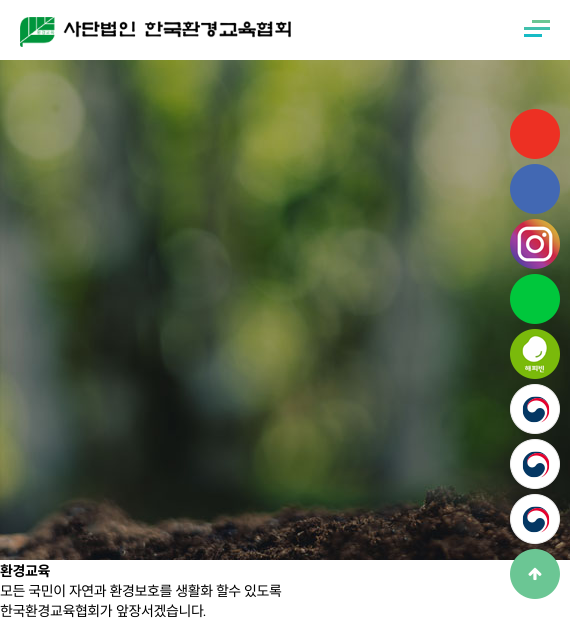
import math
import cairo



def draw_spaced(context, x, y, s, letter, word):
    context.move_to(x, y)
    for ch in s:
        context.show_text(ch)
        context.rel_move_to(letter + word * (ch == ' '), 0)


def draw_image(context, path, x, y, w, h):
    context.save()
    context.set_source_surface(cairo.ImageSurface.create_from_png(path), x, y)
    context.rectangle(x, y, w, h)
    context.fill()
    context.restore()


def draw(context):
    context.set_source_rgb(1, 1, 1)
    context.paint()
    draw_image(context, "images/5.png", 0, 60, 570, 500)
    context.set_source_rgb(237 / 255, 48 / 255, 35 / 255)
    context.arc(535, 134, 25, 0, 2 * math.pi)
    context.fill()
    context.set_source_rgb(66 / 255, 104 / 255, 179 / 255)
    context.arc(535, 189, 25, 0, 2 * math.pi)
    context.fill()
    draw_image(context, "images/1.png", 510, 219, 50, 50)
    context.set_source_rgb(0, 199 / 255, 60 / 255)
    context.arc(535, 299, 25, 0, 2 * math.pi)
    context.fill()
    draw_image(context, "images/2.png", 510, 329, 50, 50)
    context.set_source_rgb(1, 1, 1)
    context.arc(535, 409, 24.5, 0, 2 * math.pi)
    context.fill_preserve()
    context.set_source_rgb(238 / 255, 238 / 255, 238 / 255)
    context.set_line_width(1)
    context.stroke()
    draw_image(context, "images/3.png", 522, 396, 28, 27)
    context.set_source_rgb(1, 1, 1)
    context.arc(535, 464, 24.5, 0, 2 * math.pi)
    context.fill_preserve()
    context.set_source_rgb(238 / 255, 238 / 255, 238 / 255)
    context.stroke()
    draw_image(context, "images/3.png", 522, 451, 28, 27)
    context.set_source_rgb(1, 1, 1)
    context.arc(535, 519, 24.5, 0, 2 * math.pi)
    context.fill_preserve()
    context.set_source_rgb(238 / 255, 238 / 255, 238 / 255)
    context.stroke()
    draw_image(context, "images/3.png", 522, 506, 28, 27)
    draw_image(context, "images/4.png", 20, 17, 271, 30)
    context.set_source_rgb(107 / 255, 198 / 255, 148 / 255)
    context.rectangle(532, 20, 18, 3)
    context.fill()
    context.set_source_rgb(65 / 255, 192 / 255, 172 / 255)
    context.rectangle(524, 27, 26, 3)
    context.fill()
    context.set_source_rgb(23 / 255, 187 / 255, 197 / 255)
    context.rectangle(524, 34, 18, 3)
    context.fill()
    context.set_source_rgb(107 / 255, 198 / 255, 148 / 255)
    context.arc(535, 574, 25, 0, 2 * math.pi)
    context.fill()
    draw_image(context, "images/6.png", 528, 567, 14, 14)
    context.select_font_face("Noto Sans KR", cairo.FontSlant.NORMAL, cairo.FontWeight.BOLD)
    context.set_font_size(14)
    context.set_source_rgb(0, 0, 0)
    draw_spaced(context, 0, 576, "환경교육", -0.4, 0)
    context.select_font_face("Noto Sans KR")
    draw_spaced(context, 0, 596, "모든 국민이 자연과 환경보호를 생활화 할수 있도록", -0.4, 0.5)
    draw_spaced(context, 0, 616, "한국환경교육협회가 앞장서겠습니다", -0.4, 1)
    context.select_font_face("Montserrat")
    draw_spaced(context, 203, 616, ".", -0.4, 0)


surface = cairo.ImageSurface(cairo.Format.RGB24, 570, 619)
context = cairo.Context(surface)
options = cairo.FontOptions()
options.set_hint_metrics(cairo.HintMetrics.OFF)
options.set_hint_style(cairo.HintStyle.NONE)
context.set_font_options(options)
context.set_miter_limit(4)
draw(context)
surface.write_to_png("out.png")
